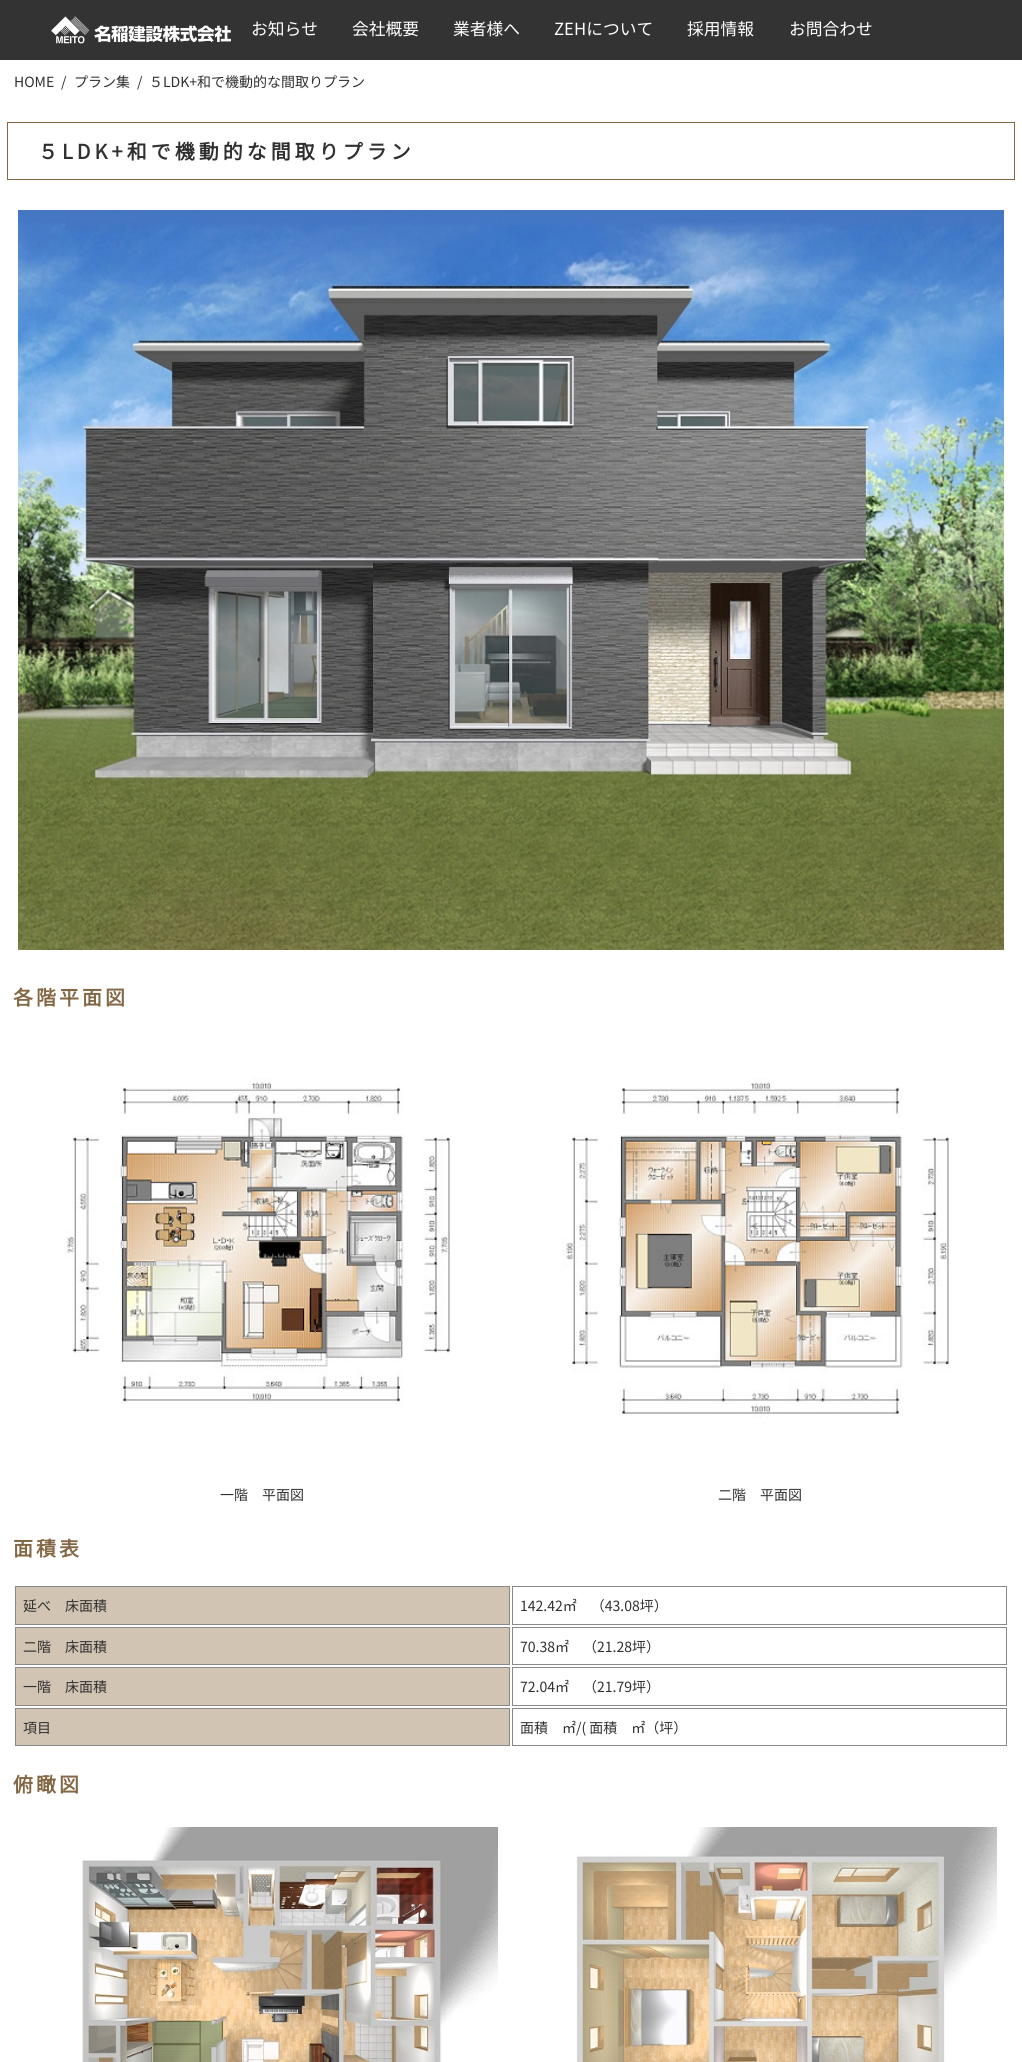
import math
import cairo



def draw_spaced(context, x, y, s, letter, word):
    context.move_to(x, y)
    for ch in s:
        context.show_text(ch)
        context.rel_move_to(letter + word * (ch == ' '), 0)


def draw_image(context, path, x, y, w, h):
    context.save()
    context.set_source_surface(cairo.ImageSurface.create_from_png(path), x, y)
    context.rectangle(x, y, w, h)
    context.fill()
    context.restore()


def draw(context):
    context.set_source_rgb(1, 1, 1)
    context.paint()
    context.set_source_rgb(51 / 255, 51 / 255, 51 / 255)
    context.rectangle(0, 0, 1022, 60)
    context.fill()
    draw_image(context, "images/1.png", 51, 16, 180, 28)
    context.rectangle(7.5, 122.5, 1007, 57)
    context.set_source_rgb(132 / 255, 103 / 255, 68 / 255)
    context.set_line_width(1)
    context.stroke()
    draw_image(context, "images/2.png", 18, 210, 986, 740)
    draw_image(context, "images/3.png", 63, 1078, 388, 331)
    draw_image(context, "images/4.png", 562, 1078, 388, 340)
    context.set_source_rgb(209 / 255, 196 / 255, 179 / 255)
    context.rectangle(15.5, 1586.5, 494, 38)
    context.fill_preserve()
    context.set_source_rgb(136 / 255, 136 / 255, 136 / 255)
    context.stroke()
    context.rectangle(512.5, 1586.5, 494, 38)
    context.stroke()
    context.set_source_rgb(209 / 255, 196 / 255, 179 / 255)
    context.rectangle(15.5, 1627.5, 494, 37)
    context.fill_preserve()
    context.set_source_rgb(136 / 255, 136 / 255, 136 / 255)
    context.stroke()
    context.rectangle(512.5, 1627.5, 494, 37)
    context.stroke()
    context.set_source_rgb(209 / 255, 196 / 255, 179 / 255)
    context.rectangle(15.5, 1667.5, 494, 38)
    context.fill_preserve()
    context.set_source_rgb(136 / 255, 136 / 255, 136 / 255)
    context.stroke()
    context.rectangle(512.5, 1667.5, 494, 38)
    context.stroke()
    context.set_source_rgb(209 / 255, 196 / 255, 179 / 255)
    context.rectangle(15.5, 1708.5, 494, 37)
    context.fill_preserve()
    context.set_source_rgb(136 / 255, 136 / 255, 136 / 255)
    context.stroke()
    context.rectangle(512.5, 1708.5, 494, 37)
    context.stroke()
    draw_image(context, "images/5.png", 82, 1827, 416, 235)
    draw_image(context, "images/6.png", 576, 1827, 421, 235)
    context.select_font_face("Noto Sans JP Thin")
    context.set_font_size(16.75)
    context.set_source_rgb(1, 1, 1)
    context.move_to(251, 35)
    context.show_text("お知らせ")
    context.move_to(352, 35)
    context.show_text("会社概要")
    context.move_to(453, 35)
    context.show_text("業者様へ")
    context.move_to(554, 35)
    context.show_text("ZEHについて")
    context.move_to(687, 35)
    context.show_text("採用情報")
    context.move_to(789, 35)
    context.show_text("お問合わせ")
    context.set_font_size(14)
    context.set_source_rgb(48 / 255, 48 / 255, 48 / 255)
    context.move_to(14, 87)
    context.show_text("HOME")
    context.move_to(61, 87)
    context.show_text("/")
    context.move_to(74, 87)
    context.show_text("プラン集")
    context.move_to(137, 87)
    context.show_text("/")
    context.move_to(149, 87)
    context.show_text("５LDK+和で機動的な間取りプラン")
    context.select_font_face("Noto Sans JP", cairo.FontSlant.NORMAL, cairo.FontWeight.BOLD)
    context.set_font_size(20)
    draw_spaced(context, 38, 159, "５LDK+和で機動的な間取りプラン", 4, 0)
    context.set_source_rgb(132 / 255, 103 / 255, 68 / 255)
    draw_spaced(context, 13, 1005, "各階平面図", 3, 0)
    context.select_font_face("Noto Sans JP Thin")
    context.set_font_size(14)
    context.set_source_rgb(48 / 255, 48 / 255, 48 / 255)
    context.move_to(220, 1500)
    context.show_text("一階　平面図")
    context.move_to(718, 1500)
    context.show_text("二階　平面図")
    context.select_font_face("Noto Sans JP", cairo.FontSlant.NORMAL, cairo.FontWeight.BOLD)
    context.set_font_size(20)
    context.set_source_rgb(132 / 255, 103 / 255, 68 / 255)
    draw_spaced(context, 13, 1556, "面積表", 3, 0)
    context.select_font_face("Noto Sans JP Thin")
    context.set_font_size(14)
    context.set_source_rgb(48 / 255, 48 / 255, 48 / 255)
    context.move_to(23, 1611)
    context.show_text("延べ　床面積")
    context.move_to(520, 1611)
    context.show_text("142.42㎡　（43.08坪）")
    context.move_to(23, 1652)
    context.show_text("二階　床面積")
    context.move_to(520, 1652)
    context.show_text("70.38㎡　（21.28坪）")
    context.move_to(23, 1692)
    context.show_text("一階　床面積")
    context.move_to(520, 1692)
    context.show_text("72.04㎡　（21.79坪）")
    context.move_to(23, 1733)
    context.show_text("項目")
    context.move_to(520, 1733)
    context.show_text("面積　㎡/( 面積　㎡（坪）")
    context.select_font_face("Noto Sans JP", cairo.FontSlant.NORMAL, cairo.FontWeight.BOLD)
    context.set_font_size(20)
    context.set_source_rgb(132 / 255, 103 / 255, 68 / 255)
    draw_spaced(context, 13, 1792, "俯瞰図", 3, 0)


surface = cairo.ImageSurface(cairo.Format.RGB24, 1022, 2062)
context = cairo.Context(surface)
options = cairo.FontOptions()
options.set_hint_metrics(cairo.HintMetrics.OFF)
options.set_hint_style(cairo.HintStyle.NONE)
context.set_font_options(options)
context.set_miter_limit(4)
draw(context)
surface.write_to_png("out.png")
